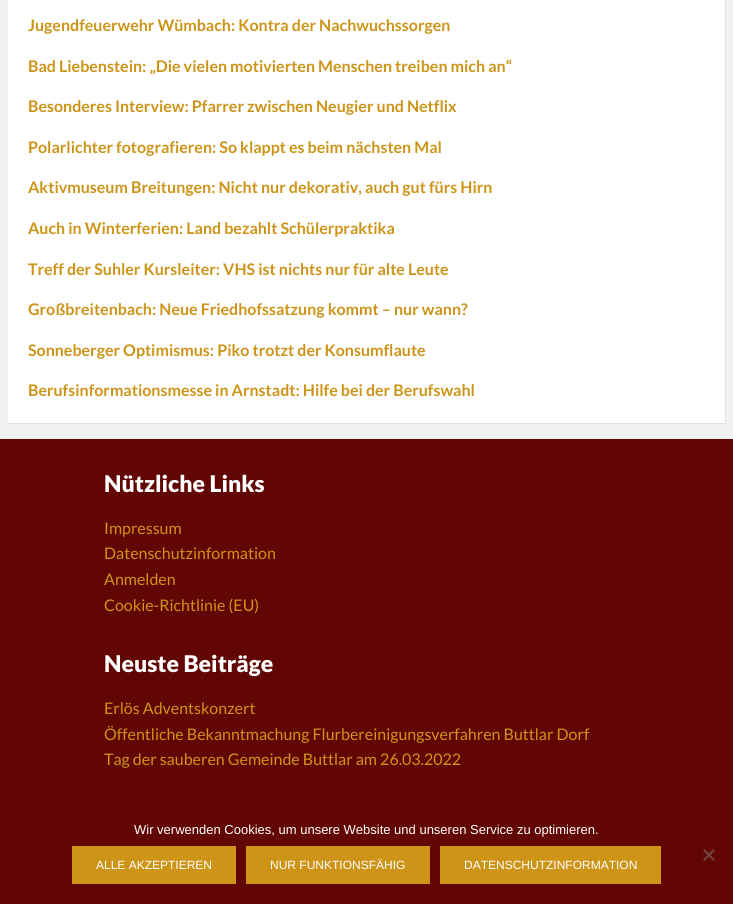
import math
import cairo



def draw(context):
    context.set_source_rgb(241 / 255, 241 / 255, 241 / 255)
    context.paint()
    context.set_source_rgb(1, 1, 1)
    context.rectangle(8, 0, 717, 423)
    context.fill()
    context.set_source_rgb(223 / 255, 223 / 255, 221 / 255)
    context.rectangle(725, 0, 1, 424)
    context.fill()
    context.rectangle(8, 423, 718, 1)
    context.fill()
    context.set_source_rgb(97 / 255, 6 / 255, 3 / 255)
    context.rectangle(0, 439, 733, 465)
    context.fill()
    context.set_source_rgb(113 / 255, 67 / 255, 66 / 255)
    context.new_path()
    context.move_to(713.5, 849)
    context.line_to(715, 850.5)
    context.line_to(704.5, 861)
    context.line_to(703, 859.5)
    context.close_path()
    context.fill()
    context.new_path()
    context.move_to(703, 850.5)
    context.line_to(704.5, 849)
    context.line_to(715, 859.5)
    context.line_to(713.5, 861)
    context.close_path()
    context.fill()
    context.set_source_rgb(205 / 255, 148 / 255, 24 / 255)
    context.rectangle(72, 846, 164, 38)
    context.fill()
    context.rectangle(246, 846, 184, 38)
    context.fill()
    context.rectangle(440, 846, 221, 38)
    context.fill()
    context.select_font_face("Lato", cairo.FontSlant.NORMAL, cairo.FontWeight.BOLD)
    context.set_font_size(16)
    context.move_to(28, 31)
    context.show_text("Jugendfeuerwehr Wümbach: Kontra der Nachwuchssorgen")
    context.move_to(28, 72)
    context.show_text("Bad Liebenstein: „Die vielen motivierten Menschen treiben mich an“")
    context.move_to(28, 112)
    context.show_text("Besonderes Interview: Pfarrer zwischen Neugier und Netflix")
    context.move_to(28, 153)
    context.show_text("Polarlichter fotografieren: So klappt es beim nächsten Mal")
    context.move_to(28, 193)
    context.show_text("Aktivmuseum Breitungen: Nicht nur dekorativ, auch gut fürs Hirn")
    context.move_to(28, 234)
    context.show_text("Auch in Winterferien: Land bezahlt Schülerpraktika")
    context.move_to(28, 275)
    context.show_text("Treff der Suhler Kursleiter: VHS ist nichts nur für alte Leute")
    context.move_to(28, 315)
    context.show_text("Großbreitenbach: Neue Friedhofssatzung kommt – nur wann?")
    context.move_to(28, 356)
    context.show_text("Sonneberger Optimismus: Piko trotzt der Konsumflaute")
    context.move_to(28, 396)
    context.show_text("Berufsinformationsmesse in Arnstadt: Hilfe bei der Berufswahl")
    context.select_font_face("Lato Black")
    context.set_font_size(23)
    context.set_source_rgb(1, 1, 1)
    context.move_to(104, 492)
    context.show_text("Nützliche Links")
    context.select_font_face("Lato")
    context.set_font_size(16)
    context.set_source_rgb(205 / 255, 148 / 255, 24 / 255)
    context.move_to(104, 534)
    context.show_text("Impressum")
    context.move_to(104, 559)
    context.show_text("Datenschutzinformation")
    context.move_to(104, 585)
    context.show_text("Anmelden")
    context.move_to(104, 611)
    context.show_text("Cookie-Richtlinie (EU)")
    context.select_font_face("Lato Black")
    context.set_font_size(23)
    context.set_source_rgb(1, 1, 1)
    context.move_to(104, 672)
    context.show_text("Neuste Beiträge")
    context.select_font_face("Lato")
    context.set_font_size(16)
    context.set_source_rgb(205 / 255, 148 / 255, 24 / 255)
    context.move_to(104, 714)
    context.show_text("Erlös Adventskonzert")
    context.move_to(104, 740)
    context.show_text("Öffentliche Bekanntmachung Flurbereinigungsverfahren Buttlar Dorf")
    context.move_to(104, 765)
    context.show_text("Tag der sauberen Gemeinde Buttlar am 26.03.2022")
    context.select_font_face("Liberation Sans")
    context.set_font_size(13)
    context.set_source_rgb(1, 1, 1)
    context.move_to(134, 834)
    context.show_text("Wir verwenden Cookies, um unsere Website und unseren Service zu optimieren.")
    context.set_font_size(12)
    context.move_to(96, 869)
    context.show_text("ALLE AKZEPTIEREN")
    context.move_to(270, 869)
    context.show_text("NUR FUNKTIONSFÄHIG")
    context.move_to(464, 869)
    context.show_text("DATENSCHUTZINFORMATION")


surface = cairo.ImageSurface(cairo.Format.RGB24, 733, 904)
context = cairo.Context(surface)
options = cairo.FontOptions()
options.set_hint_metrics(cairo.HintMetrics.OFF)
options.set_hint_style(cairo.HintStyle.NONE)
context.set_font_options(options)
context.set_miter_limit(4)
draw(context)
surface.write_to_png("out.png")
